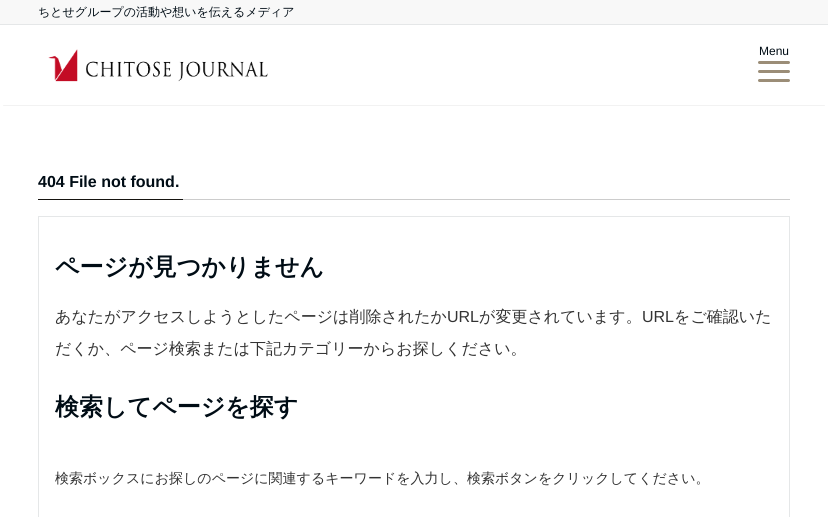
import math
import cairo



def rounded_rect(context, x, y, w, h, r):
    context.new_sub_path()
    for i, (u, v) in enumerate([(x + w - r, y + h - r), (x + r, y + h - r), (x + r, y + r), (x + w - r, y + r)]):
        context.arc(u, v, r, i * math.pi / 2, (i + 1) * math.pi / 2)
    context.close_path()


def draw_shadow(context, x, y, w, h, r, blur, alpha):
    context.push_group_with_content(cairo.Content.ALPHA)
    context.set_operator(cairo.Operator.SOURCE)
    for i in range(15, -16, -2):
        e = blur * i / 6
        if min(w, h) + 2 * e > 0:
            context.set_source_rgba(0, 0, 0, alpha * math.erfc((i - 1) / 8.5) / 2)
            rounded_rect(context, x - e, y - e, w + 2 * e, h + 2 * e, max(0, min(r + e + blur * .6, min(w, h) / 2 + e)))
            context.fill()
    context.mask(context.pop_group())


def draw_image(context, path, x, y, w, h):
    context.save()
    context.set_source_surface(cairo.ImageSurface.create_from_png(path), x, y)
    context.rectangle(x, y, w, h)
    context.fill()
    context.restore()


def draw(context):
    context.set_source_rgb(1, 1, 1)
    context.paint()
    context.set_source_rgb(248 / 255, 248 / 255, 248 / 255)
    context.rectangle(0, 0, 828, 24)
    context.fill()
    context.set_source_rgb(229 / 255, 231 / 255, 232 / 255)
    context.rectangle(0, 24, 828, 1)
    context.fill()
    context.save()
    context.rectangle(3, 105, 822, 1)
    context.clip()
    context.set_source_rgb(0, 0, 0)
    draw_shadow(context, 3, 30, 822, 74, 0, 1.5, 0.3)
    context.restore()
    draw_image(context, "images/1.png", 48, 49, 220, 33)
    context.set_source_rgb(155 / 255, 141 / 255, 119 / 255)
    rounded_rect(context, 758, 61, 32, 3, 1.5)
    context.fill()
    rounded_rect(context, 758, 70, 32, 3, 1.5)
    context.fill()
    rounded_rect(context, 758, 79, 32, 3, 1.5)
    context.fill()
    context.set_source_rgb(204 / 255, 204 / 255, 204 / 255)
    context.rectangle(183, 199, 607, 1)
    context.fill()
    context.set_source_rgb(22 / 255, 20 / 255, 16 / 255)
    context.rectangle(38, 199, 145, 1)
    context.fill()
    context.rectangle(38.5, 216.5, 751, 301)
    context.set_source_rgb(229 / 255, 231 / 255, 232 / 255)
    context.set_line_width(1)
    context.stroke()
    context.select_font_face("WenQuanYi Zen Hei Medium")
    context.set_font_size(12)
    context.set_source_rgb(0, 12 / 255, 21 / 255)
    context.move_to(38, 16)
    context.show_text("ちとせグループの活動や想いを伝えるメディア")
    context.select_font_face("Liberation Sans")
    context.move_to(759, 55)
    context.show_text("Menu")
    context.select_font_face("Liberation Sans", cairo.FontSlant.NORMAL, cairo.FontWeight.BOLD)
    context.set_font_size(16)
    context.move_to(38, 187)
    context.show_text("404 File not found.")
    context.select_font_face("WenQuanYi Zen Hei", cairo.FontSlant.NORMAL, cairo.FontWeight.BOLD)
    context.set_font_size(24)
    context.move_to(55, 275)
    context.show_text("ページが見つかりません")
    context.select_font_face("WenQuanYi Zen Hei Medium")
    context.set_font_size(16)
    context.set_source_rgb(51 / 255, 51 / 255, 51 / 255)
    context.move_to(55, 322)
    context.show_text("あなたがアクセスしようとしたページは削除されたか")
    context.select_font_face("Liberation Sans")
    context.move_to(447, 322)
    context.show_text("URL")
    context.select_font_face("WenQuanYi Zen Hei Medium")
    context.move_to(479, 322)
    context.show_text("が変更されています。")
    context.select_font_face("Liberation Sans")
    context.move_to(642, 322)
    context.show_text("URL")
    context.select_font_face("WenQuanYi Zen Hei Medium")
    context.move_to(674, 322)
    context.show_text("をご確認いた")
    context.move_to(55, 354)
    context.show_text("だくか、ページ検索または下記カテゴリーからお探しください。")
    context.select_font_face("WenQuanYi Zen Hei", cairo.FontSlant.NORMAL, cairo.FontWeight.BOLD)
    context.set_font_size(24)
    context.set_source_rgb(0, 12 / 255, 21 / 255)
    context.move_to(55, 415)
    context.show_text("検索してページを探す")
    context.select_font_face("WenQuanYi Zen Hei Medium")
    context.set_font_size(14)
    context.set_source_rgb(51 / 255, 51 / 255, 51 / 255)
    context.move_to(55, 483)
    context.show_text("検索ボックスにお探しのページに関連するキーワードを入力し、検索ボタンをクリックしてください。")


surface = cairo.ImageSurface(cairo.Format.RGB24, 828, 517)
context = cairo.Context(surface)
options = cairo.FontOptions()
options.set_hint_metrics(cairo.HintMetrics.OFF)
options.set_hint_style(cairo.HintStyle.NONE)
context.set_font_options(options)
context.set_miter_limit(4)
draw(context)
surface.write_to_png("out.png")
